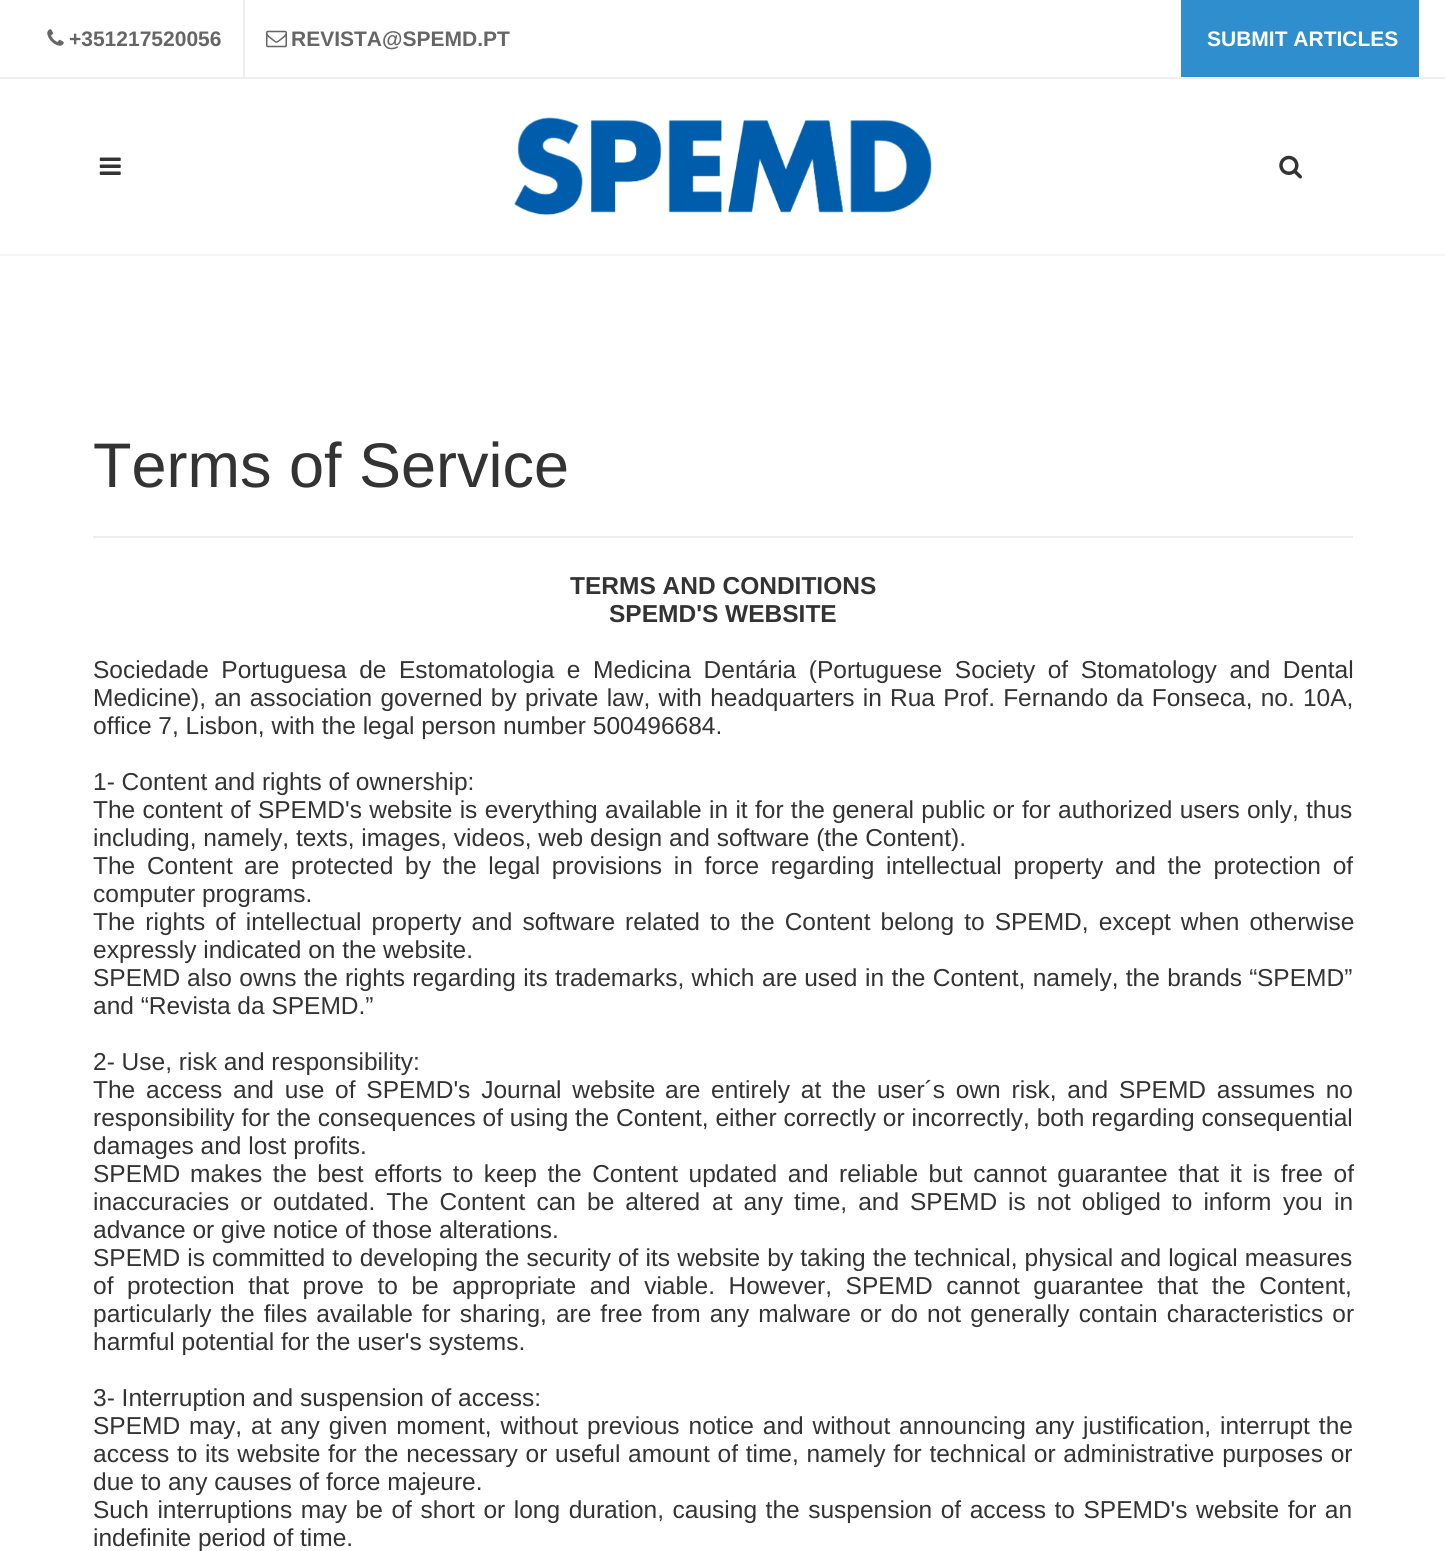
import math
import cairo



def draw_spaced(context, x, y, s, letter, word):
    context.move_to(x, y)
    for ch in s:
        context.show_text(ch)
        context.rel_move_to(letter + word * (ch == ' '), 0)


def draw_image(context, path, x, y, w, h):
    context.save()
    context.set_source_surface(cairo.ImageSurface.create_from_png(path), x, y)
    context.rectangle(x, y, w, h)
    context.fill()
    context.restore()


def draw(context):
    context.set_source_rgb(1, 1, 1)
    context.paint()
    context.set_source_rgb(238 / 255, 238 / 255, 238 / 255)
    context.rectangle(0, 77, 1445, 2)
    context.fill()
    draw_image(context, "images/1.png", 47, 29, 17, 17)
    context.rectangle(243, 0, 2, 77)
    context.fill()
    draw_image(context, "images/2.png", 266, 30, 21, 18)
    context.set_source_rgb(46 / 255, 142 / 255, 206 / 255)
    context.rectangle(1181, 0, 238, 77)
    context.fill()
    context.set_source_rgb(245 / 255, 245 / 255, 245 / 255)
    context.rectangle(0, 254, 1445, 2)
    context.fill()
    draw_image(context, "images/3.png", 99, 157, 22, 18)
    draw_image(context, "images/4.png", 514, 117, 418, 99)
    draw_image(context, "images/5.png", 1279, 155, 23, 24)
    context.set_source_rgb(238 / 255, 238 / 255, 238 / 255)
    context.rectangle(93, 536, 1260, 2)
    context.fill()
    context.select_font_face("Liberation Sans", cairo.FontSlant.NORMAL, cairo.FontWeight.BOLD)
    context.set_font_size(21)
    context.set_source_rgb(102 / 255, 102 / 255, 102 / 255)
    context.move_to(69, 46)
    context.show_text("+351217520056")
    context.move_to(291, 46)
    context.show_text("REVISTA@SPEMD.PT")
    context.set_source_rgb(1, 1, 1)
    context.move_to(1207, 46)
    context.show_text("SUBMIT ARTICLES")
    context.select_font_face("Liberation Sans")
    context.set_font_size(63)
    context.set_source_rgb(51 / 255, 51 / 255, 51 / 255)
    context.move_to(93, 487)
    context.show_text("Terms of Service")
    context.select_font_face("Liberation Sans", cairo.FontSlant.NORMAL, cairo.FontWeight.BOLD)
    context.set_font_size(24.5)
    context.move_to(570, 594)
    context.show_text("TERMS AND CONDITIONS")
    context.move_to(609, 622)
    context.show_text("SPEMD'S WEBSITE")
    context.select_font_face("Liberation Sans")
    draw_spaced(context, 93, 678, "Sociedade Portuguesa de Estomatologia e Medicina Dentária (Portuguese Society of Stomatology and Dental", 0, 5.75)
    draw_spaced(context, 93, 706, "Medicine), an association governed by private law, with headquarters in Rua Prof. Fernando da Fonseca, no. 10A,", 0, 1.4)
    context.move_to(93, 734)
    context.show_text("office 7, Lisbon, with the legal person number 500496684.")
    context.move_to(93, 790)
    context.show_text("1- Content and rights of ownership:")
    draw_spaced(context, 93, 818, "The content of SPEMD's website is everything available in it for the general public or", 0, 0.5)
    context.move_to(1022, 818)
    context.show_text("for")
    draw_spaced(context, 1058, 818, "authorized users only, thus", 0, 0.5)
    context.move_to(93, 846)
    context.show_text("including, namely, texts, images, videos, web design and software (the Content).")
    draw_spaced(context, 93, 874, "The Content", 0, 4.9)
    draw_spaced(context, 244, 874, "are protected", 0, 4.9)
    draw_spaced(context, 405, 874, "by the legal provisions in force regarding intellectual property and the protection of", 0, 4.9)
    context.move_to(93, 902)
    context.show_text("computer programs.")
    draw_spaced(context, 93, 930, "The rights of intellectual property and software related to the Content belong to SPEMD, except when otherwise", 0, 3.25)
    context.move_to(93, 958)
    context.show_text("expressly indicated on the website.")
    context.move_to(93, 986)
    context.show_text("SPEMD")
    draw_spaced(context, 187, 986, "also owns the rights regarding its trademarks, which", 0, 0.5)
    context.move_to(762, 986)
    context.show_text("are used")
    draw_spaced(context, 865, 986, "in the Content, namely, the brands “", 0, 0.5)
    context.move_to(1257, 986)
    context.show_text("SPEMD”")
    context.move_to(93, 1014)
    context.show_text("and “Revista da SPEMD.”")
    context.move_to(93, 1070)
    context.show_text("2- Use, risk and responsibility:")
    draw_spaced(context, 93, 1098, "The access and use of SPEMD's Journal website", 0, 4)
    context.move_to(665, 1098)
    context.show_text("are")
    draw_spaced(context, 711, 1098, "entirely at the user´s own risk, and SPEMD assumes no", 0, 4)
    context.move_to(93, 1126)
    context.show_text("responsibility for the consequences of using the Content, either correctly or incorrectly, both regarding consequential")
    context.move_to(93, 1154)
    context.show_text("damages and lost profits.")
    context.move_to(93, 1182)
    context.show_text("SPEMD")
    draw_spaced(context, 190, 1182, "makes the best efforts to keep the Content updated and reliable but cannot guarantee that it is free of", 0, 3.75)
    draw_spaced(context, 93, 1210, "inaccuracies or outdated. The Content can", 0, 4.25)
    draw_spaced(context, 587, 1210, "be altered", 0, 4.25)
    draw_spaced(context, 712, 1210, "at any time, and", 0, 4.25)
    context.move_to(910, 1210)
    context.show_text("SPEMD")
    draw_spaced(context, 1008, 1210, "is not obliged to inform", 0, 4.25)
    context.move_to(1283, 1210)
    context.show_text("you")
    context.move_to(1334, 1210)
    context.show_text("in")
    context.move_to(93, 1238)
    context.show_text("advance or give notice of those alterations.")
    draw_spaced(context, 93, 1266, "SPEMD is committed to developing the security of its website by taking the technical, physical and logical measures", 0, 0.3)
    draw_spaced(context, 93, 1294, "of protection that prove to be appropriate and viable. However, SPEMD cannot guarantee that the Content,", 0, 6.75)
    draw_spaced(context, 93, 1322, "particularly the files available for sharing, are free from any malware or do not generally contain characteristics or", 0, 2.25)
    context.move_to(93, 1350)
    context.show_text("harmful potential for the user's systems.")
    context.move_to(93, 1406)
    context.show_text("3- Interruption and suspension of access:")
    context.move_to(93, 1434)
    context.show_text("SPEMD")
    draw_spaced(context, 189, 1434, "may, at any given moment, without previous notice and without announcing any justification, interrupt the", 0, 2.1)
    draw_spaced(context, 93, 1462, "access to its website for the necessary or useful amount of time, namely for technical or administrative purposes or", 0, 0.9)
    context.move_to(93, 1490)
    context.show_text("due to any causes of force majeure.")
    draw_spaced(context, 93, 1518, "Such interruptions may be of short or long duration, causing the suspension of access to SPEMD's website for an", 0, 1.75)
    context.move_to(93, 1546)
    context.show_text("indefinite period of time.")


surface = cairo.ImageSurface(cairo.Format.RGB24, 1445, 1551)
context = cairo.Context(surface)
options = cairo.FontOptions()
options.set_hint_metrics(cairo.HintMetrics.OFF)
options.set_hint_style(cairo.HintStyle.NONE)
context.set_font_options(options)
context.set_miter_limit(4)
draw(context)
surface.write_to_png("out.png")
